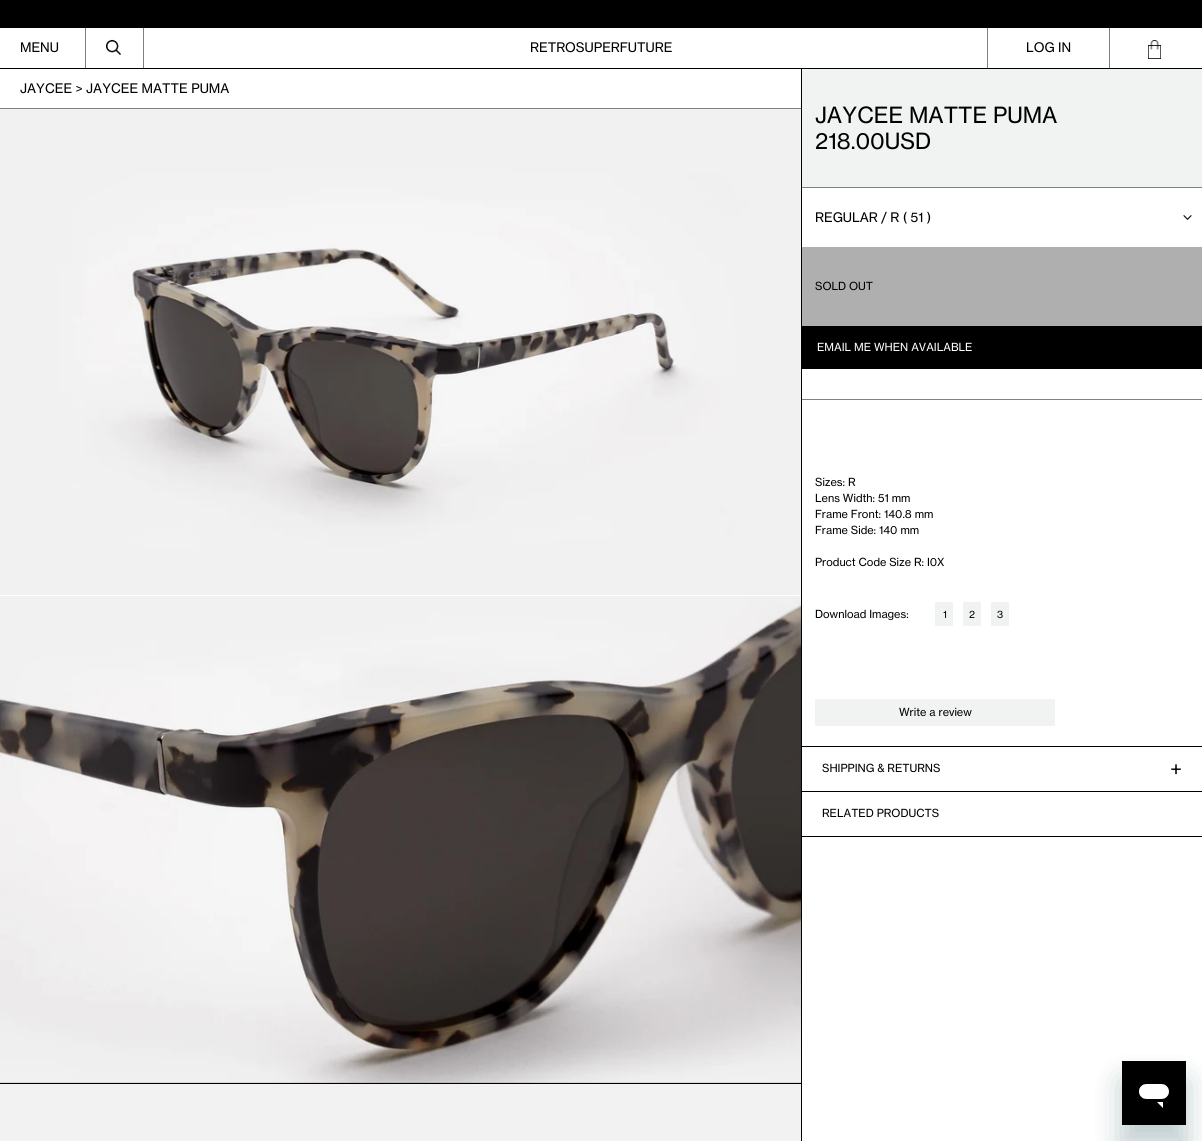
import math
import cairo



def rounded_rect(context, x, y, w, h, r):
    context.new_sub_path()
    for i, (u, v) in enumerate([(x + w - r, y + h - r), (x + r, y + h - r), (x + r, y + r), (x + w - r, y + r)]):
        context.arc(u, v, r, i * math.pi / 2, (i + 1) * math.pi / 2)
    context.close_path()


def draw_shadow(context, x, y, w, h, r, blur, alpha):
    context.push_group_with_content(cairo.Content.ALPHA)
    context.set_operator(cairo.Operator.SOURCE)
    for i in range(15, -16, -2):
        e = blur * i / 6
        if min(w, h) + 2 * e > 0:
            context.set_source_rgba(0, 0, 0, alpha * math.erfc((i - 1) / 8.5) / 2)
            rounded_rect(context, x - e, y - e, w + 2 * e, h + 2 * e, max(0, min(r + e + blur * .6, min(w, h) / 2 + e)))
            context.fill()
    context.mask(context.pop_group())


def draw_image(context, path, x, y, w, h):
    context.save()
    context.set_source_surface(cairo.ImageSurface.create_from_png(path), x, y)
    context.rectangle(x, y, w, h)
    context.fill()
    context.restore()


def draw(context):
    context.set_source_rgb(1, 1, 1)
    context.paint()
    context.set_source_rgb(0, 0, 0)
    context.rectangle(0, 0, 1202, 28)
    context.fill()
    context.set_source_rgb(128 / 255, 128 / 255, 128 / 255)
    context.rectangle(85, 28, 1, 40)
    context.fill()
    context.rectangle(143, 28, 1, 40)
    context.fill()
    draw_image(context, "images/1.png", 106, 39, 15, 16)
    context.rectangle(987, 28, 1, 40)
    context.fill()
    context.rectangle(1109, 28, 1, 40)
    context.fill()
    draw_image(context, "images/2.png", 1148, 40, 13, 19)
    context.set_source_rgb(0, 0, 0)
    context.rectangle(801, 69, 1, 1072)
    context.fill()
    context.rectangle(0, 68, 1202, 1)
    context.fill()
    context.set_source_rgb(128 / 255, 128 / 255, 128 / 255)
    context.rectangle(0, 108, 801, 1)
    context.fill()
    context.set_source_rgb(0, 0, 0)
    context.rectangle(0, 1082, 801, 2)
    context.fill()
    draw_image(context, "images/3.png", 0, 109, 801, 486)
    draw_image(context, "images/4.png", 0, 596, 801, 487)
    context.set_source_rgb(242 / 255, 242 / 255, 242 / 255)
    context.rectangle(0, 1084, 801, 57)
    context.fill()
    context.set_source_rgb(241 / 255, 243 / 255, 242 / 255)
    context.rectangle(802, 69, 400, 118)
    context.fill()
    context.set_source_rgb(128 / 255, 128 / 255, 128 / 255)
    context.rectangle(802, 187, 400, 1)
    context.fill()
    draw_image(context, "images/5.png", 1183, 215, 9, 5)
    context.set_source_rgb(175 / 255, 175 / 255, 175 / 255)
    context.rectangle(802, 247, 400, 79)
    context.fill()
    context.set_source_rgb(0, 0, 0)
    context.rectangle(802, 326, 400, 43)
    context.fill()
    context.set_source_rgb(128 / 255, 128 / 255, 128 / 255)
    context.rectangle(802, 399, 400, 1)
    context.fill()
    context.set_source_rgb(241 / 255, 243 / 255, 242 / 255)
    context.rectangle(935, 602, 18, 24)
    context.fill()
    context.rectangle(963, 602, 18, 24)
    context.fill()
    context.rectangle(991, 602, 18, 24)
    context.fill()
    context.rectangle(815, 699, 240, 27)
    context.fill()
    context.set_source_rgb(0, 0, 0)
    context.rectangle(802, 746, 400, 1)
    context.fill()
    context.rectangle(802, 791, 400, 1)
    context.fill()
    context.rectangle(802, 836, 400, 1)
    context.fill()
    context.set_source_rgb(23 / 255, 73 / 255, 77 / 255)
    draw_shadow(context, 1122, 1081, 64, 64, 0, 15, 0.15)
    draw_image(context, "images/6.png", 1122, 1061, 64, 64)
    context.save()
    context.set_fill_rule(cairo.FillRule.EVEN_ODD)
    context.new_path()
    context.move_to(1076, 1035)
    context.line_to(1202, 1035)
    context.line_to(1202, 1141)
    context.line_to(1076, 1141)
    context.close_path()
    context.move_to(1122, 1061)
    context.line_to(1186, 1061)
    context.line_to(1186, 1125)
    context.line_to(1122, 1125)
    context.close_path()
    context.clip()
    draw_shadow(context, 1122, 1081, 64, 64, 0, 15, 0.15)
    context.restore()
    context.select_font_face("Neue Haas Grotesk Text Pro")
    context.set_font_size(13)
    context.set_source_rgb(0, 0, 0)
    context.move_to(20, 52)
    context.show_text("MENU")
    context.move_to(530, 52)
    context.show_text("RETROSUPERFUTURE")
    context.move_to(1026, 52)
    context.show_text("LOG IN")
    context.move_to(20, 93)
    context.show_text("JAYCEE > JAYCEE MATTE PUMA")
    context.set_font_size(22)
    context.move_to(815, 123)
    context.show_text("JAYCEE MATTE PUMA")
    context.move_to(815, 149)
    context.show_text("218.00USD")
    context.set_font_size(13)
    context.move_to(815, 222)
    context.show_text("REGULAR / R ( 51 )")
    context.set_font_size(11)
    context.move_to(815, 290)
    context.show_text("SOLD OUT")
    context.set_source_rgb(1, 1, 1)
    context.move_to(817, 351)
    context.show_text("EMAIL ME WHEN AVAILABLE")
    context.set_source_rgb(0, 0, 0)
    context.move_to(815, 486)
    context.show_text("Sizes: R")
    context.move_to(815, 502)
    context.show_text("Lens Width: 51 mm")
    context.move_to(815, 518)
    context.show_text("Frame Front: 140.8 mm")
    context.move_to(815, 534)
    context.show_text("Frame Side: 140 mm")
    context.move_to(815, 566)
    context.show_text("Product Code Size R: I0X")
    context.move_to(815, 618)
    context.show_text("Download Images:")
    context.set_font_size(10)
    context.move_to(943, 618)
    context.show_text("1")
    context.move_to(969, 618)
    context.show_text("2")
    context.move_to(997, 618)
    context.show_text("3")
    context.set_font_size(11)
    context.move_to(899, 716)
    context.show_text("Write a review")
    context.move_to(822, 772)
    context.show_text("SHIPPING & RETURNS")
    context.set_font_size(20)
    context.move_to(1170, 776)
    context.show_text("+")
    context.set_font_size(11)
    context.move_to(822, 817)
    context.show_text("RELATED PRODUCTS")


surface = cairo.ImageSurface(cairo.Format.RGB24, 1202, 1141)
context = cairo.Context(surface)
options = cairo.FontOptions()
options.set_hint_metrics(cairo.HintMetrics.OFF)
options.set_hint_style(cairo.HintStyle.NONE)
context.set_font_options(options)
context.set_miter_limit(4)
draw(context)
surface.write_to_png("out.png")
